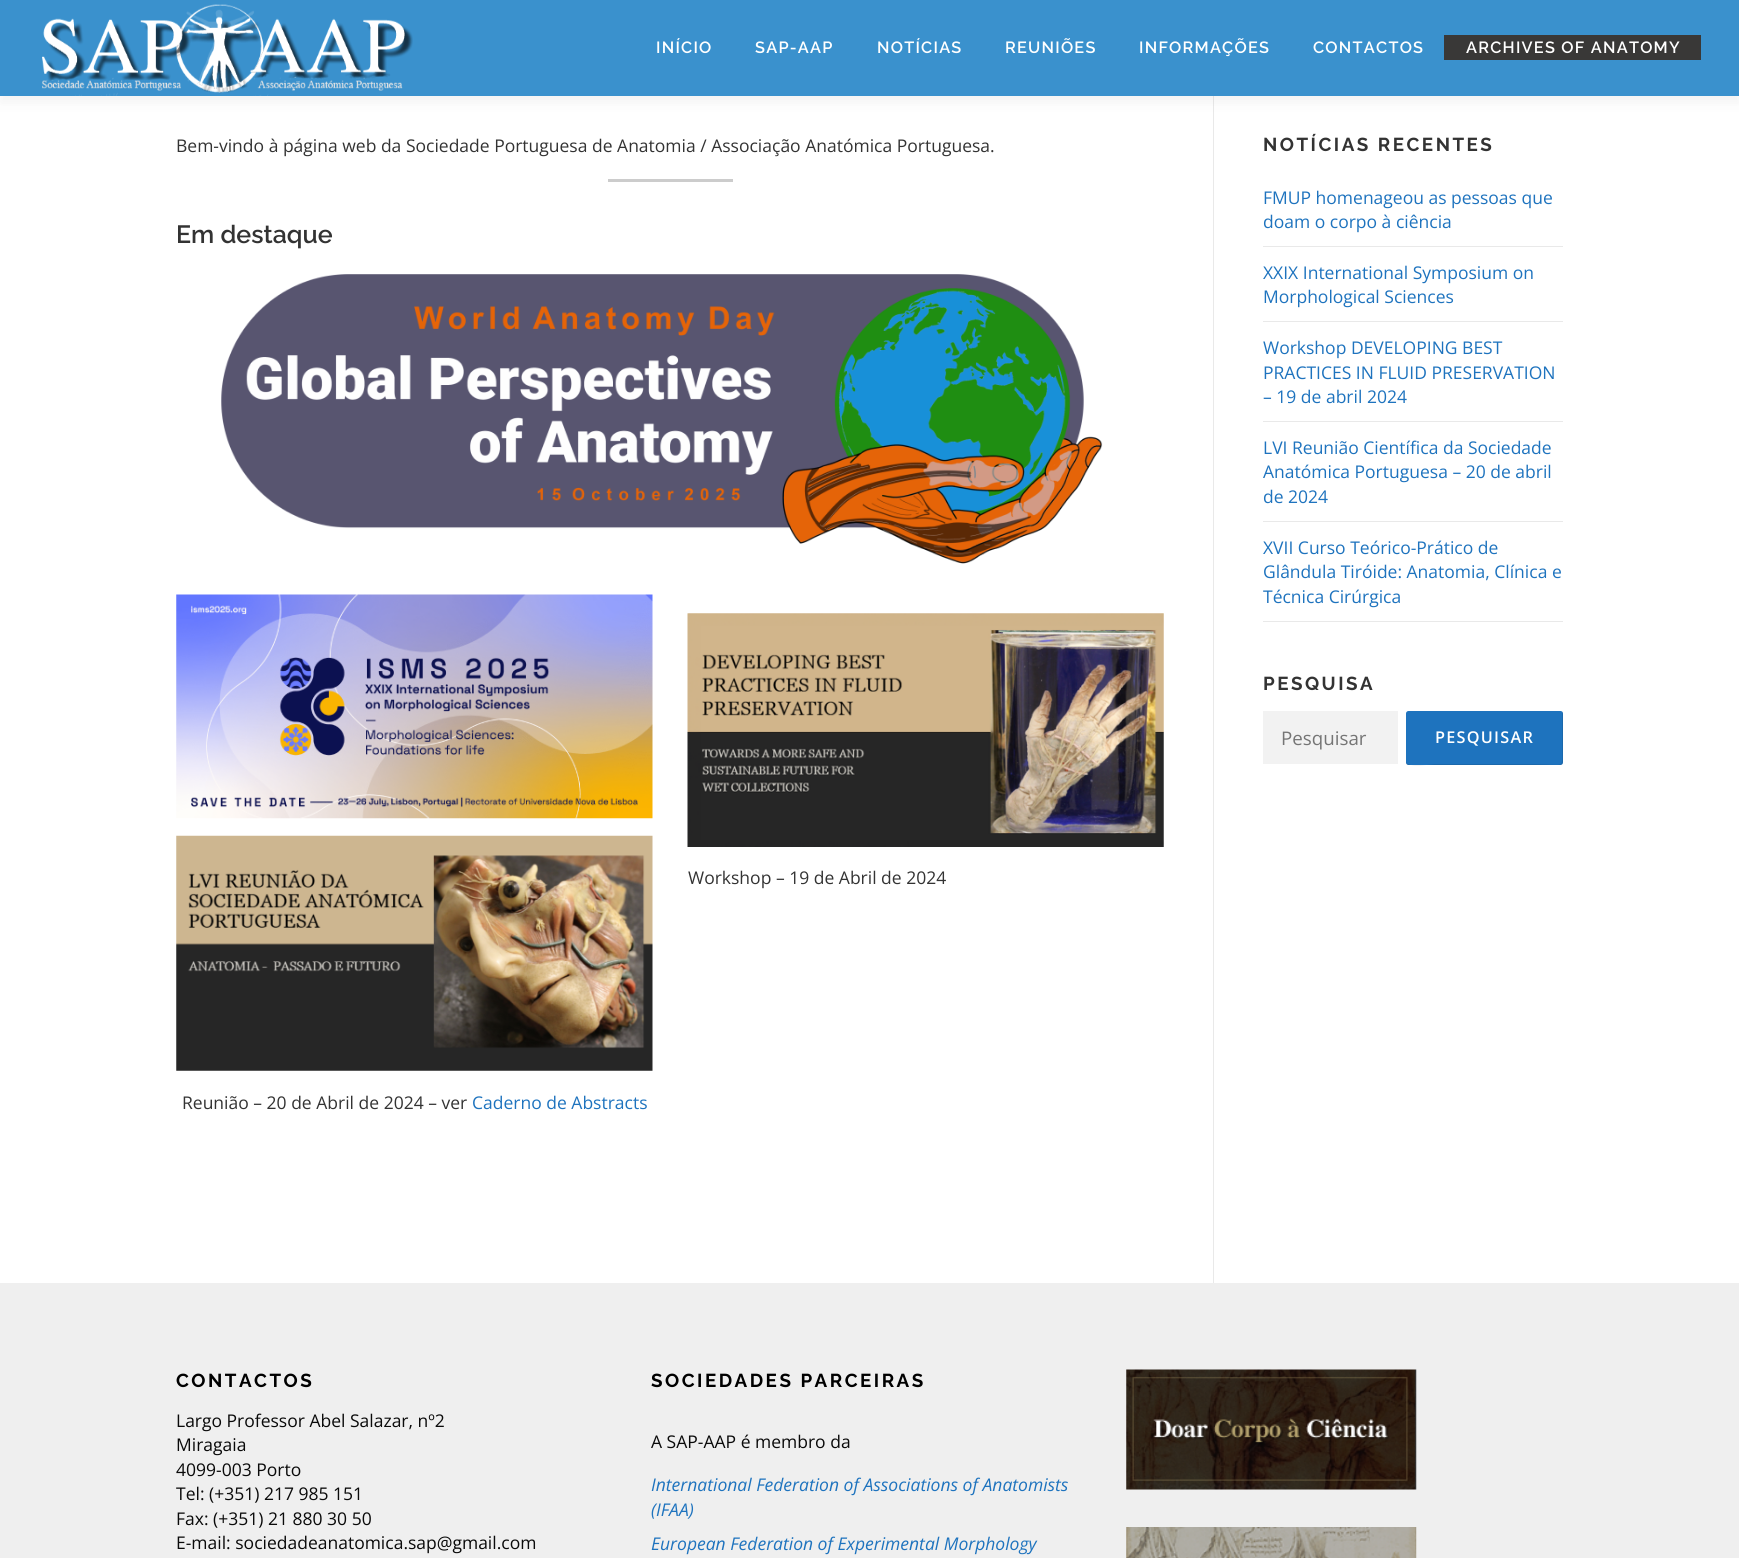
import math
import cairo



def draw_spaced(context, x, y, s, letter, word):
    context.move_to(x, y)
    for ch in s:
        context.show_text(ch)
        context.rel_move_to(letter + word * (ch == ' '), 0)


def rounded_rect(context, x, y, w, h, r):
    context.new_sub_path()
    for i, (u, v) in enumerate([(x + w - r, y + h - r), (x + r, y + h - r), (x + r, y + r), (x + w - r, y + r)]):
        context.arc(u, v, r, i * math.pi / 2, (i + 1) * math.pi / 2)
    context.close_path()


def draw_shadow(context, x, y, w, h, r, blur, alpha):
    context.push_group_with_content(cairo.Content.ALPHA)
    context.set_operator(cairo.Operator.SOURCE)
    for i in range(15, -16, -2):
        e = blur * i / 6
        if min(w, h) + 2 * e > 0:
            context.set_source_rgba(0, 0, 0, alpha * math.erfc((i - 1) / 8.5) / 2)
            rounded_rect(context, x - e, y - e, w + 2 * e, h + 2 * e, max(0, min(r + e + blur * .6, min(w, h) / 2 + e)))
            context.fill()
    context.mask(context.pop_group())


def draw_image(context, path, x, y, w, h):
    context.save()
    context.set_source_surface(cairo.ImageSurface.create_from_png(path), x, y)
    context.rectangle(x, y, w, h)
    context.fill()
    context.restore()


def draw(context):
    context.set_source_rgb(1, 1, 1)
    context.paint()
    context.set_source_rgb(233 / 255, 233 / 255, 233 / 255)
    context.rectangle(1213, 96, 1, 1187)
    context.fill()
    context.set_source_rgb(50 / 255, 50 / 255, 50 / 255)
    draw_shadow(context, 0, 6, 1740, 97, 0, 6, 0.06)
    context.set_source_rgb(58 / 255, 145 / 255, 205 / 255)
    context.rectangle(0, 0, 1739, 96)
    context.fill()
    draw_image(context, "images/1.png", 42, 4, 371, 92)
    context.set_source_rgb(57 / 255, 56 / 255, 55 / 255)
    context.rectangle(1444, 35, 257, 25)
    context.fill()
    context.set_source_rgb(204 / 255, 204 / 255, 204 / 255)
    context.rectangle(608, 179, 125, 3)
    context.fill()
    draw_image(context, "images/2.png", 221, 274, 882, 290)
    draw_image(context, "images/3.png", 687, 613, 477, 234)
    draw_image(context, "images/4.png", 176, 594, 477, 225)
    draw_image(context, "images/5.png", 176, 835, 477, 236)
    context.set_source_rgb(233 / 255, 233 / 255, 233 / 255)
    context.rectangle(1263, 246, 300, 1)
    context.fill()
    context.rectangle(1263, 321, 300, 1)
    context.fill()
    context.rectangle(1263, 421, 300, 1)
    context.fill()
    context.rectangle(1263, 521, 300, 1)
    context.fill()
    context.rectangle(1263, 621, 300, 1)
    context.fill()
    context.set_source_rgb(242 / 255, 242 / 255, 242 / 255)
    context.rectangle(1263, 711, 135, 53)
    context.fill()
    context.set_source_rgb(30 / 255, 115 / 255, 190 / 255)
    rounded_rect(context, 1406, 711, 157, 54, 2.5)
    context.fill()
    context.set_source_rgba(0, 0, 0, 0.1)
    context.new_path()
    context.move_to(1406, 761)
    context.line_to(1406, 762)
    context.curve_to(1406, 764, 1407, 765, 1408, 765)
    context.line_to(1560, 765)
    context.curve_to(1562, 765, 1563, 764, 1563, 762)
    context.line_to(1563, 714)
    context.curve_to(1563, 713, 1563, 712, 1562, 711)
    context.line_to(1562, 745)
    context.curve_to(1562, 771, 1566, 764, 1535, 764)
    context.line_to(1434, 764)
    context.curve_to(1433, 764, 1406, 769, 1406, 761)
    context.close_path()
    context.fill()
    context.set_source_rgb(239 / 255, 239 / 255, 239 / 255)
    context.rectangle(0, 1283, 1739, 275)
    context.fill()
    draw_image(context, "images/6.png", 1126, 1369, 291, 121)
    draw_image(context, "images/7.png", 1126, 1527, 291, 31)
    context.select_font_face("Raleway SemiBold")
    context.set_font_size(16.25)
    context.set_source_rgb(1, 1, 1)
    draw_spaced(context, 656, 53, "INÍCIO", 1.25, 0)
    draw_spaced(context, 755, 53, "SAP-AAP", 1.25, 0)
    draw_spaced(context, 877, 53, "NOTÍCIAS", 1.25, 0)
    draw_spaced(context, 1005, 53, "REUNIÕES", 1.25, 0)
    draw_spaced(context, 1139, 53, "INFORMAÇÕES", 1.25, 0)
    draw_spaced(context, 1313, 53, "CONTACTOS", 1.25, 0)
    draw_spaced(context, 1466, 53, "ARCHIVES OF ANATOMY", 1.25, 0)
    context.select_font_face("Open Sans")
    context.set_font_size(17.5)
    context.set_source_rgb(51 / 255, 51 / 255, 51 / 255)
    context.move_to(176, 152)
    context.show_text("Bem-vindo à página web da Sociedade Portuguesa de Anatomia / Associação Anatómica Portuguesa.")
    context.select_font_face("Raleway SemiBold")
    context.set_font_size(25)
    context.move_to(176, 243)
    context.show_text("Em destaque")
    context.select_font_face("Open Sans")
    context.set_font_size(17.5)
    context.move_to(688, 884)
    context.show_text("Workshop – 19 de Abril de 2024")
    context.move_to(182, 1109)
    context.show_text("Reunião – 20 de Abril de 2024 – ver")
    context.set_source_rgb(30 / 255, 115 / 255, 190 / 255)
    context.move_to(472, 1109)
    context.show_text("Caderno de Abstracts")
    context.select_font_face("Raleway", cairo.FontSlant.NORMAL, cairo.FontWeight.BOLD)
    context.set_font_size(18.75)
    context.set_source_rgb(51 / 255, 51 / 255, 51 / 255)
    draw_spaced(context, 1263, 151, "NOTÍCIAS RECENTES", 2.5, 0)
    context.select_font_face("Open Sans")
    context.set_font_size(17.5)
    context.set_source_rgb(30 / 255, 115 / 255, 190 / 255)
    context.move_to(1263, 204)
    context.show_text("FMUP homenageou as pessoas que")
    context.move_to(1263, 228)
    context.show_text("doam o corpo à ciência")
    context.move_to(1263, 279)
    context.show_text("XXIX International Symposium on")
    context.move_to(1263, 303)
    context.show_text("Morphological Sciences")
    context.move_to(1263, 354)
    context.show_text("Workshop DEVELOPING BEST")
    context.move_to(1263, 379)
    context.show_text("PRACTICES IN FLUID PRESERVATION")
    context.move_to(1263, 403)
    context.show_text("– 19 de abril 2024")
    context.move_to(1263, 454)
    context.show_text("LVI Reunião Científica da Sociedade")
    context.move_to(1263, 478)
    context.show_text("Anatómica Portuguesa – 20 de abril")
    context.move_to(1263, 503)
    context.show_text("de 2024")
    context.move_to(1263, 554)
    context.show_text("XVII Curso Teórico-Prático de")
    context.move_to(1263, 578)
    context.show_text("Glândula Tiróide: Anatomia, Clínica e")
    context.move_to(1263, 603)
    context.show_text("Técnica Cirúrgica")
    context.select_font_face("Raleway", cairo.FontSlant.NORMAL, cairo.FontWeight.BOLD)
    context.set_font_size(18.75)
    context.set_source_rgb(51 / 255, 51 / 255, 51 / 255)
    draw_spaced(context, 1263, 690, "PESQUISA", 2.5, 0)
    context.select_font_face("Open Sans")
    context.set_source_rgb(117 / 255, 117 / 255, 117 / 255)
    context.move_to(1281, 745)
    context.show_text("Pesquisar")
    context.select_font_face("Open Sans SemiBold")
    context.set_font_size(16.25)
    context.set_source_rgb(1, 1, 1)
    draw_spaced(context, 1435, 743, "PESQUISAR", 1.25, 0)
    context.select_font_face("Raleway", cairo.FontSlant.NORMAL, cairo.FontWeight.BOLD)
    context.set_font_size(18.75)
    context.set_source_rgb(0, 0, 0)
    draw_spaced(context, 176, 1387, "CONTACTOS", 2.5, 0)
    context.select_font_face("Open Sans")
    context.set_font_size(17.5)
    context.set_source_rgb(10 / 255, 10 / 255, 10 / 255)
    context.move_to(176, 1427)
    context.show_text("Largo Professor Abel Salazar, nº2")
    context.move_to(176, 1451)
    context.show_text("Miragaia")
    context.move_to(176, 1476)
    context.show_text("4099-003 Porto")
    context.move_to(176, 1500)
    context.show_text("Tel: (+351) 217 985 151")
    context.move_to(176, 1525)
    context.show_text("Fax: (+351) 21 880 30 50")
    context.move_to(176, 1549)
    context.show_text("E-mail: sociedadeanatomica.sap@gmail.com")
    context.select_font_face("Raleway", cairo.FontSlant.NORMAL, cairo.FontWeight.BOLD)
    context.set_font_size(18.75)
    context.set_source_rgb(0, 0, 0)
    draw_spaced(context, 651, 1387, "SOCIEDADES PARCEIRAS", 2.5, 0)
    context.select_font_face("Open Sans")
    context.set_font_size(17.5)
    context.set_source_rgb(10 / 255, 10 / 255, 10 / 255)
    context.move_to(651, 1448)
    context.show_text("A SAP-AAP é membro da")
    context.select_font_face("Open Sans", cairo.FontSlant.ITALIC)
    context.set_source_rgb(30 / 255, 115 / 255, 190 / 255)
    context.move_to(651, 1491)
    context.show_text("International Federation of Associations of Anatomists")
    context.move_to(651, 1516)
    context.show_text("(IFAA)")
    context.move_to(651, 1550)
    context.show_text("European Federation of Experimental Morphology")


surface = cairo.ImageSurface(cairo.Format.RGB24, 1739, 1558)
context = cairo.Context(surface)
options = cairo.FontOptions()
options.set_hint_metrics(cairo.HintMetrics.OFF)
options.set_hint_style(cairo.HintStyle.NONE)
context.set_font_options(options)
context.set_miter_limit(4)
draw(context)
surface.write_to_png("out.png")
